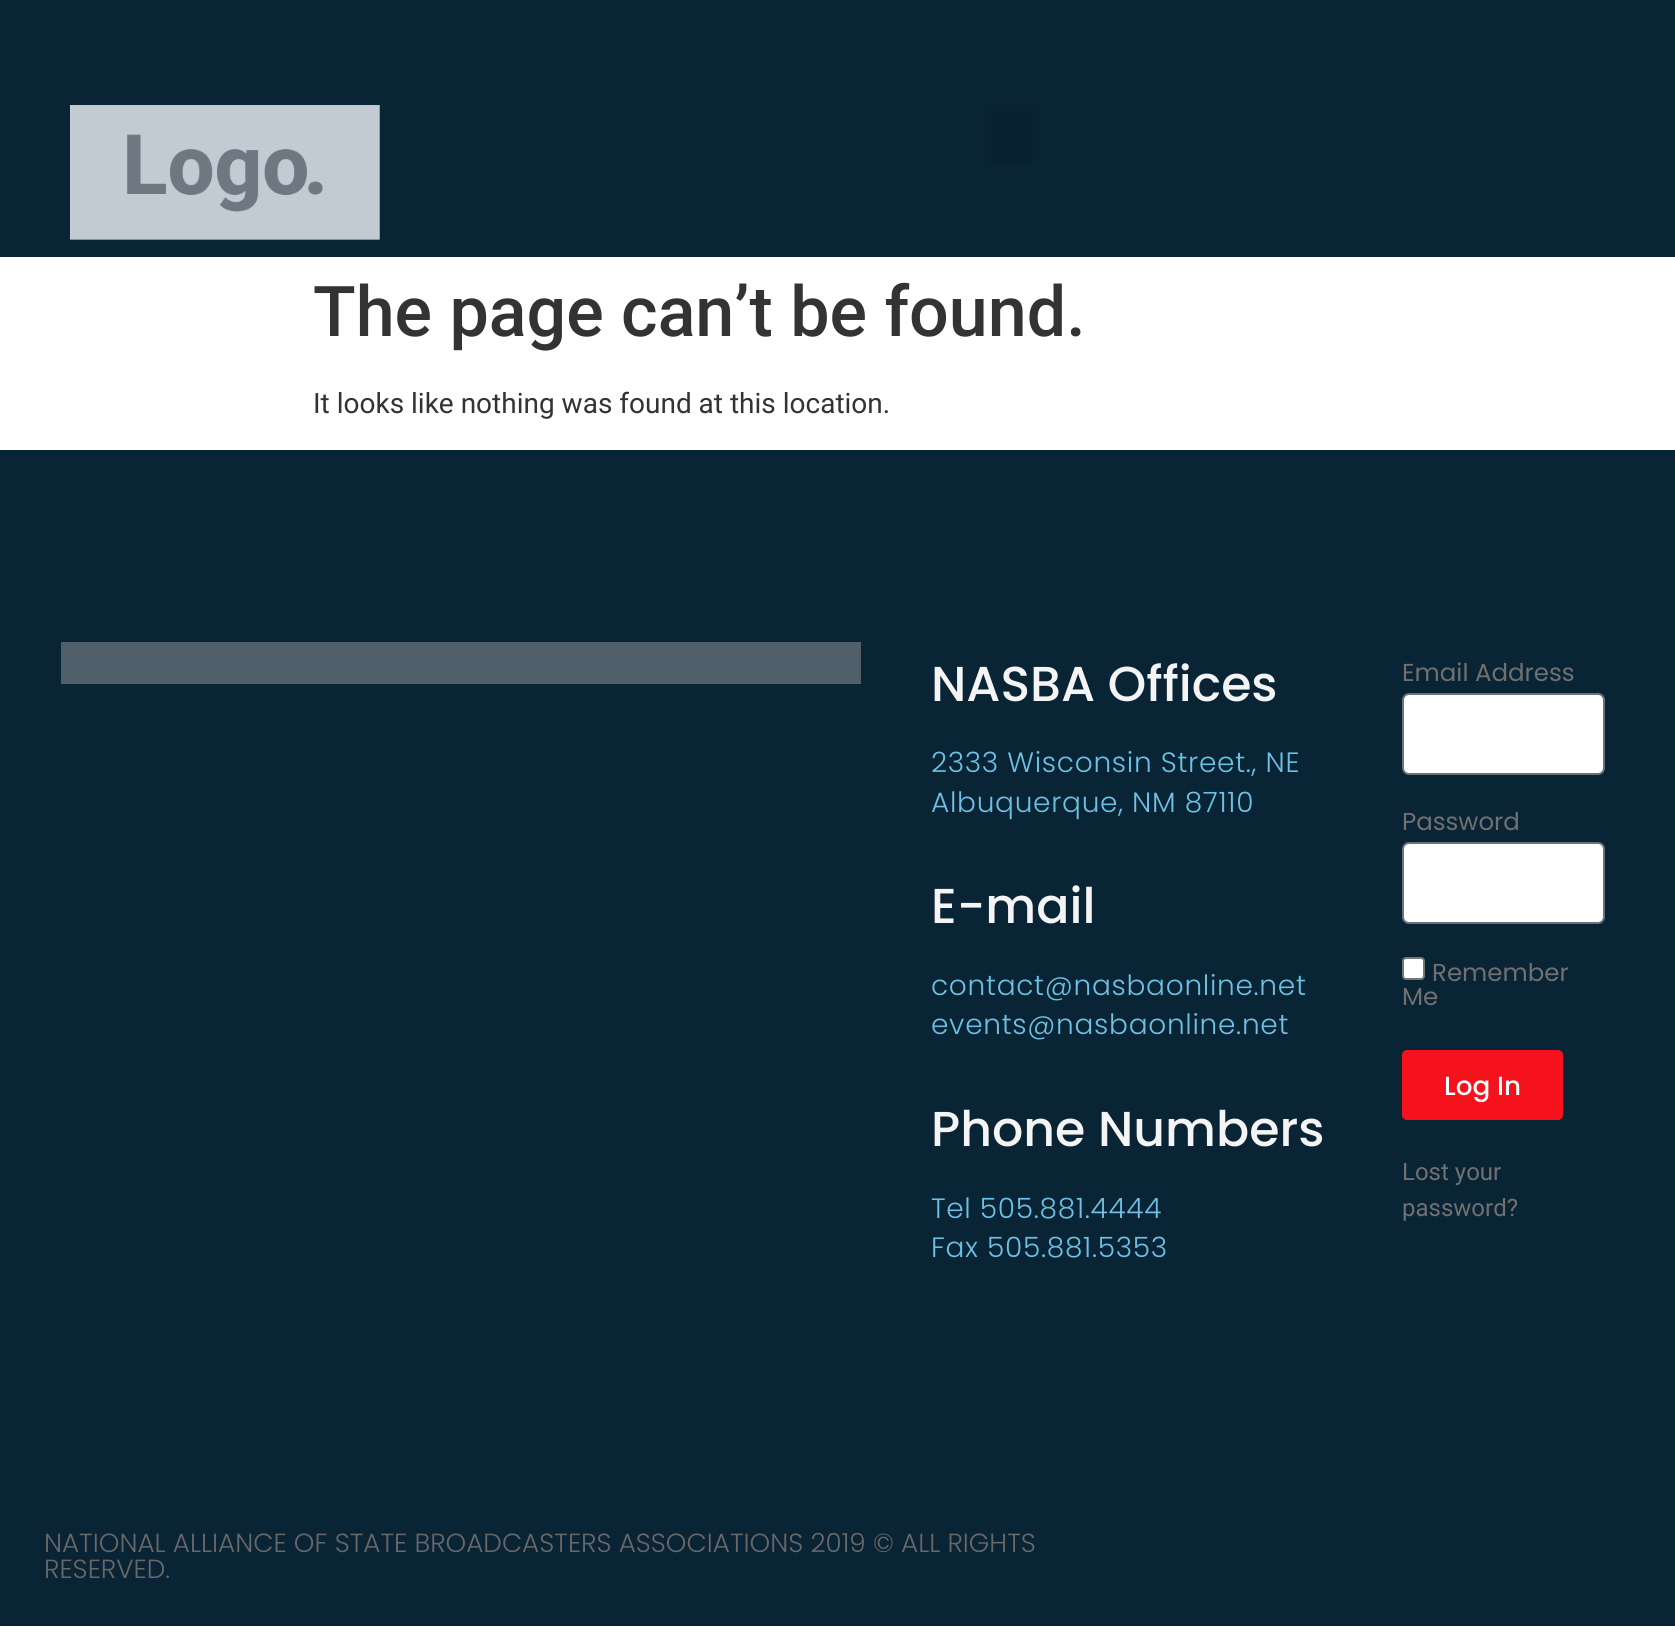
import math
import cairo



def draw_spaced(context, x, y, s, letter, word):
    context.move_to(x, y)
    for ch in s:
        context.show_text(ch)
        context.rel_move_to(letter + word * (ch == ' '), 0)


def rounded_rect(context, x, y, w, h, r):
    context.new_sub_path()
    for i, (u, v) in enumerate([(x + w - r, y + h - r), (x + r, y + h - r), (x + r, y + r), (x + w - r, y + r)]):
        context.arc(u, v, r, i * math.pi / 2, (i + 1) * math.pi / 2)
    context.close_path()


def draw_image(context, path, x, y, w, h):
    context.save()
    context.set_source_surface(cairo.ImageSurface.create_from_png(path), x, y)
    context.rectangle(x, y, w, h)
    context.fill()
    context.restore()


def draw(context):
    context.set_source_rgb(1, 1, 1)
    context.paint()
    context.set_source_rgb(9 / 255, 36 / 255, 53 / 255)
    context.rectangle(0, 0, 1675, 257)
    context.fill()
    draw_image(context, "images/1.png", 70, 105, 310, 135)
    context.set_source_rgb(9 / 255, 34 / 255, 50 / 255)
    rounded_rect(context, 985, 105, 49, 58, 5)
    context.fill()
    context.set_source_rgb(9 / 255, 36 / 255, 53 / 255)
    context.rectangle(0, 450, 1675, 1176)
    context.fill()
    context.set_source_rgb(80 / 255, 95 / 255, 105 / 255)
    context.rectangle(61, 642, 800, 42)
    context.fill()
    context.set_source_rgb(1, 1, 1)
    rounded_rect(context, 1403, 694, 201, 80, 6)
    context.fill_preserve()
    context.set_source_rgb(105 / 255, 114 / 255, 125 / 255)
    context.stroke()
    context.set_source_rgb(1, 1, 1)
    rounded_rect(context, 1403, 843, 201, 80, 6)
    context.fill_preserve()
    context.set_source_rgb(105 / 255, 114 / 255, 125 / 255)
    context.stroke()
    context.set_source_rgb(1, 1, 1)
    rounded_rect(context, 1403, 958, 21, 21, 3)
    context.fill_preserve()
    context.set_source_rgb(118 / 255, 118 / 255, 118 / 255)
    context.stroke()
    context.set_source_rgb(246 / 255, 18 / 255, 28 / 255)
    rounded_rect(context, 1402, 1050, 161, 70, 5)
    context.fill()
    context.select_font_face("Roboto Medium")
    context.set_font_size(70)
    context.set_source_rgb(51 / 255, 51 / 255, 51 / 255)
    context.move_to(313, 336)
    context.show_text("The page can’t be found.")
    context.select_font_face("Roboto")
    context.set_font_size(28)
    context.move_to(313, 413)
    context.show_text("It looks like nothing was found at this location.")
    context.select_font_face("Poppins Medium")
    context.set_font_size(49)
    context.set_source_rgb(244 / 255, 244 / 255, 244 / 255)
    context.move_to(931, 701)
    context.show_text("NASBA Offices")
    context.select_font_face("Poppins Light")
    context.set_font_size(28)
    context.set_source_rgb(110 / 255, 193 / 255, 228 / 255)
    draw_spaced(context, 931, 772, "2333 Wisconsin Street., NE", 0.7, 0)
    draw_spaced(context, 931, 812, "Albuquerque, NM 87110", 0.7, 0)
    context.select_font_face("Poppins Medium")
    context.set_font_size(49)
    context.set_source_rgb(244 / 255, 244 / 255, 244 / 255)
    context.move_to(931, 923)
    context.show_text("E-mail")
    context.select_font_face("Poppins Light")
    context.set_font_size(28)
    context.set_source_rgb(110 / 255, 193 / 255, 228 / 255)
    draw_spaced(context, 931, 995, "contact@nasbaonline.net", 0.7, 0)
    draw_spaced(context, 931, 1034, "events@nasbaonline.net", 0.7, 0)
    context.select_font_face("Poppins Medium")
    context.set_font_size(49)
    context.set_source_rgb(244 / 255, 244 / 255, 244 / 255)
    context.move_to(931, 1146)
    context.show_text("Phone Numbers")
    context.select_font_face("Poppins Light")
    context.set_font_size(28)
    context.set_source_rgb(110 / 255, 193 / 255, 228 / 255)
    draw_spaced(context, 931, 1218, "Tel 505.881.4444", 0.7, 0)
    draw_spaced(context, 931, 1257, "Fax 505.881.5353", 0.7, 0)
    context.select_font_face("Poppins")
    context.set_font_size(24.5)
    context.set_source_rgb(112 / 255, 112 / 255, 112 / 255)
    context.move_to(1402, 681)
    context.show_text("Email Address")
    context.move_to(1402, 830)
    context.show_text("Password")
    context.move_to(1432, 981)
    context.show_text("Remember")
    context.move_to(1402, 1005)
    context.show_text("Me")
    context.select_font_face("Poppins Medium")
    context.set_font_size(26.25)
    context.set_source_rgb(1, 1, 1)
    context.move_to(1444, 1095)
    context.show_text("Log In")
    context.select_font_face("Roboto")
    context.set_font_size(24)
    context.set_source_rgb(112 / 255, 112 / 255, 112 / 255)
    context.move_to(1402, 1180)
    context.show_text("Lost your")
    context.move_to(1402, 1216)
    context.show_text("password?")
    context.select_font_face("Poppins Light")
    context.set_font_size(26.25)
    context.set_source_rgb(104 / 255, 104 / 255, 104 / 255)
    context.move_to(44, 1552)
    context.show_text("NATIONAL ALLIANCE OF STATE BROADCASTERS ASSOCIATIONS 2019 © ALL RIGHTS")
    context.move_to(44, 1578)
    context.show_text("RESERVED.")


surface = cairo.ImageSurface(cairo.Format.RGB24, 1675, 1634)
context = cairo.Context(surface)
options = cairo.FontOptions()
options.set_hint_metrics(cairo.HintMetrics.OFF)
options.set_hint_style(cairo.HintStyle.NONE)
context.set_font_options(options)
context.set_miter_limit(4)
draw(context)
surface.write_to_png("out.png")
